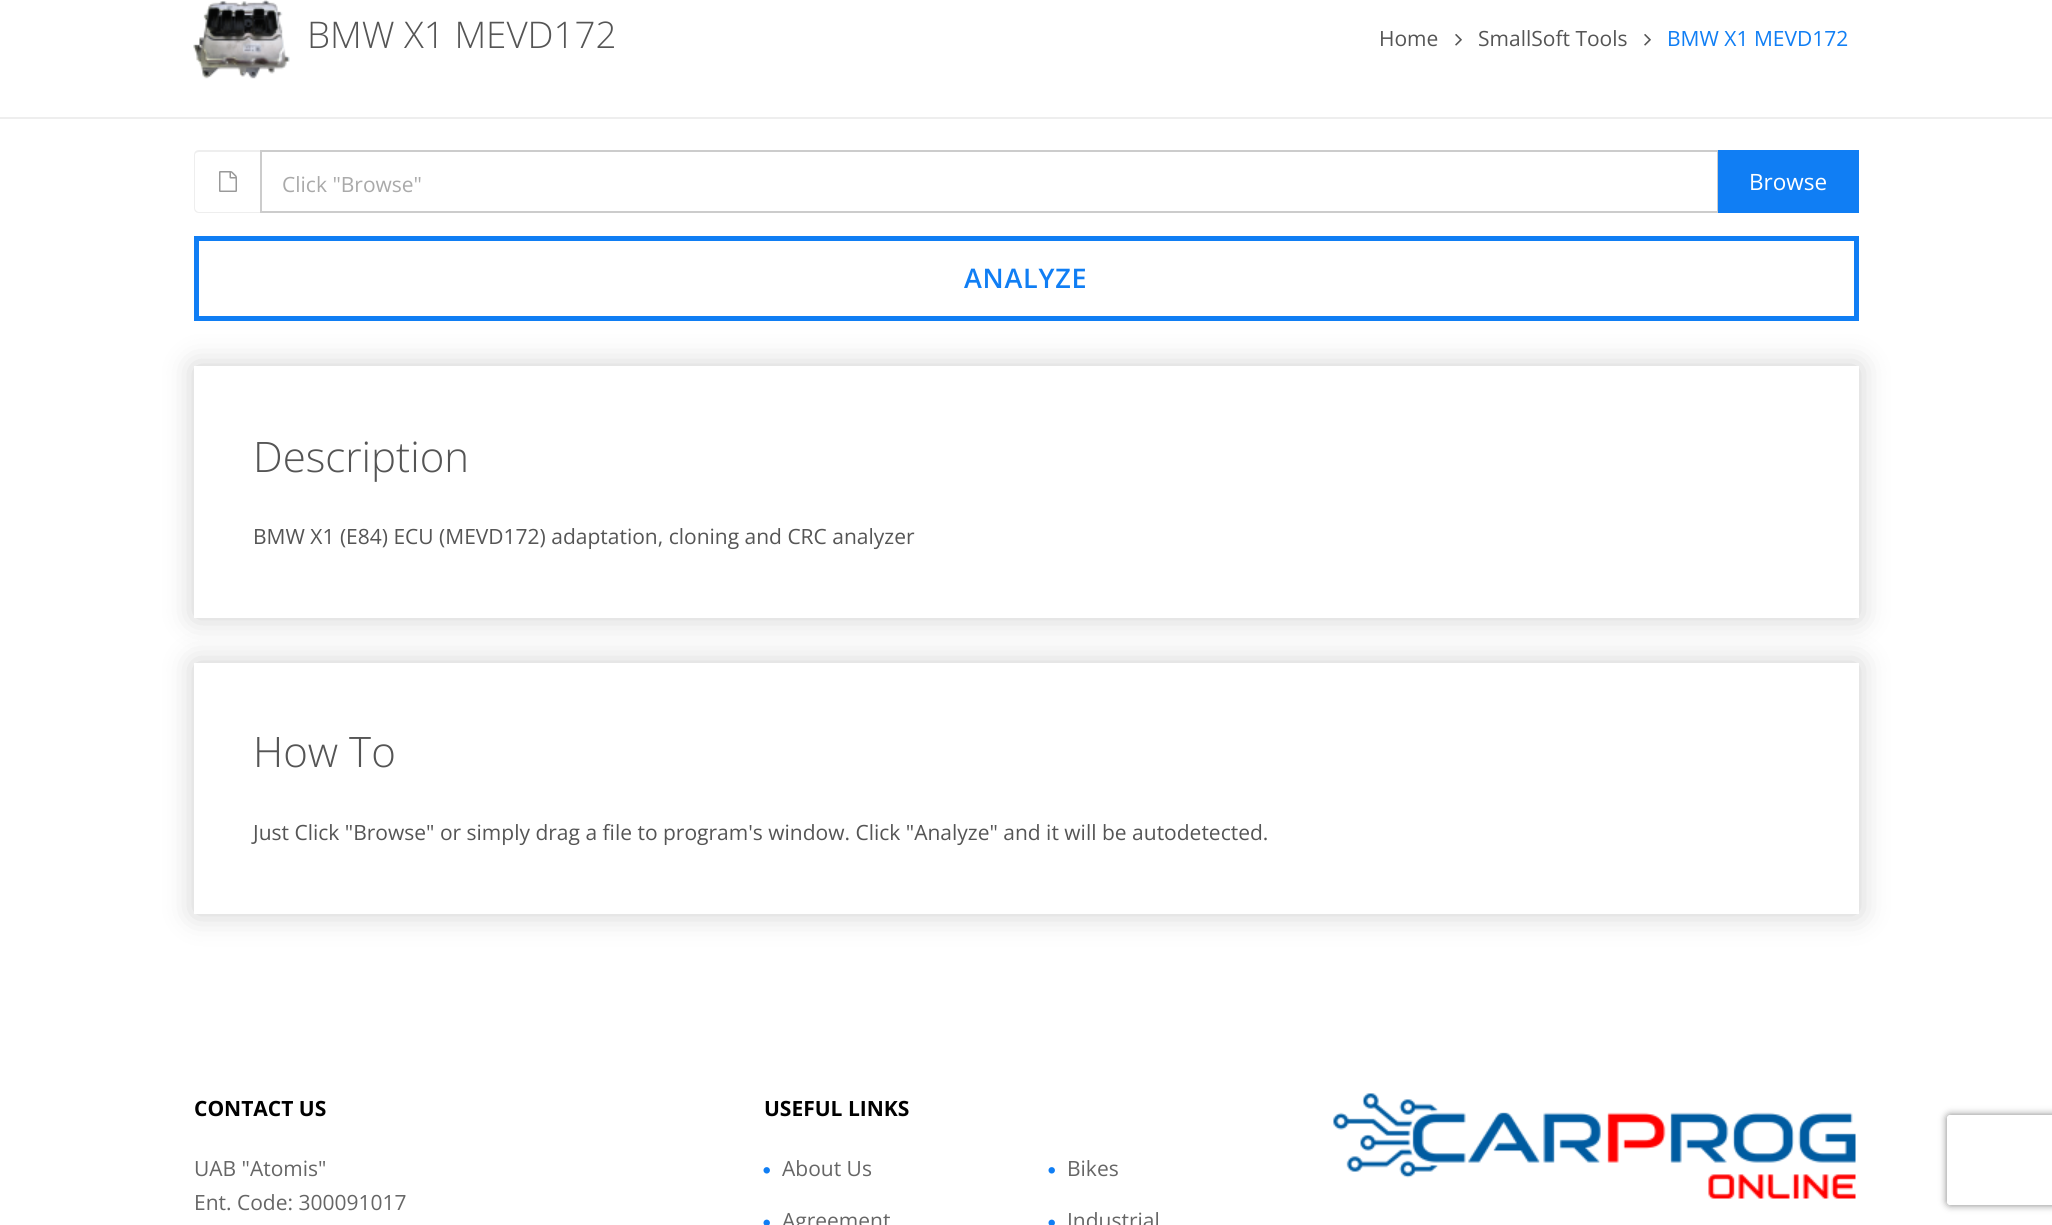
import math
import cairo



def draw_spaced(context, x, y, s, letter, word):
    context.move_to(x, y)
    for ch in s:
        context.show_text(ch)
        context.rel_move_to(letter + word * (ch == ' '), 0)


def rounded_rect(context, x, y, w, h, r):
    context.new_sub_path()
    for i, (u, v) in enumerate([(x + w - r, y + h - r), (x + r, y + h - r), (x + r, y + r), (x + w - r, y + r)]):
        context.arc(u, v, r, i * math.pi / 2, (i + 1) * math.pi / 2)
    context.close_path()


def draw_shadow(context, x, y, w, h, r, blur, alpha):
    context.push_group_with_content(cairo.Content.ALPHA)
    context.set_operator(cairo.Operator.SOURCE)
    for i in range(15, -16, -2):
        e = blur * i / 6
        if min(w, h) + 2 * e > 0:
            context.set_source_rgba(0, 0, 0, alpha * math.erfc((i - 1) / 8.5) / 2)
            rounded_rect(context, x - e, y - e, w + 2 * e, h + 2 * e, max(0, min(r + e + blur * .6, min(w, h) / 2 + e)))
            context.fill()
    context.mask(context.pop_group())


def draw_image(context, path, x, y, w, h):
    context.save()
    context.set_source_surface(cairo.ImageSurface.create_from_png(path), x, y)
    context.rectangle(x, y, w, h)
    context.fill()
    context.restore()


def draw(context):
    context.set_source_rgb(1, 1, 1)
    context.paint()
    context.set_source_rgb(238 / 255, 238 / 255, 238 / 255)
    context.rectangle(0, 117, 2052, 2)
    context.fill()
    draw_image(context, "images/1.png", 193, 0, 97, 79)
    draw_image(context, "images/2.png", 1455, 34, 7, 12)
    draw_image(context, "images/2.png", 1644, 34, 7, 12)
    context.set_fill_rule(cairo.FillRule.EVEN_ODD)
    context.new_path()
    context.move_to(199, 150)
    context.line_to(261, 150)
    context.line_to(261, 213)
    context.line_to(199, 213)
    context.curve_to(196, 213, 194, 211, 194, 208)
    context.line_to(194, 155)
    context.curve_to(194, 152, 196, 150, 199, 150)
    context.close_path()
    context.move_to(199, 152)
    context.line_to(261, 152)
    context.line_to(261, 212)
    context.line_to(199, 212)
    context.curve_to(197, 212, 195, 210, 195, 208)
    context.line_to(195, 155)
    context.curve_to(195, 153, 197, 152, 199, 152)
    context.close_path()
    context.fill()
    draw_image(context, "images/3.png", 219, 171, 18, 21)
    context.rectangle(261, 151, 1457, 61)
    context.set_source_rgb(204 / 255, 204 / 255, 204 / 255)
    context.stroke()
    context.set_source_rgb(16 / 255, 126 / 255, 244 / 255)
    context.rectangle(1718, 150, 141, 63)
    context.fill()
    context.save()
    context.new_path()
    context.move_to(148, 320)
    context.line_to(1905, 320)
    context.line_to(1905, 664)
    context.line_to(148, 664)
    context.close_path()
    context.move_to(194, 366)
    context.line_to(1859, 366)
    context.line_to(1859, 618)
    context.line_to(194, 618)
    context.close_path()
    context.clip()
    context.set_source_rgb(0, 0, 0)
    draw_shadow(context, 194, 366, 1665, 252, 0, 15, 0.2)
    context.restore()
    context.rectangle(196.5, 238.5, 1660, 80)
    context.set_line_width(5)
    context.stroke()
    context.save()
    context.new_path()
    context.move_to(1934, 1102)
    context.line_to(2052, 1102)
    context.line_to(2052, 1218)
    context.line_to(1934, 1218)
    context.close_path()
    context.move_to(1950, 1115)
    context.line_to(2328, 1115)
    context.curve_to(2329.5, 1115, 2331, 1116.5, 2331, 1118)
    context.line_to(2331, 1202)
    context.curve_to(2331, 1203.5, 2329.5, 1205, 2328, 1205)
    context.line_to(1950, 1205)
    context.curve_to(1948.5, 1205, 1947, 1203.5, 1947, 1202)
    context.line_to(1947, 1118)
    context.curve_to(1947, 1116.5, 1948.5, 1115, 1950, 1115)
    context.close_path()
    context.clip()
    context.set_source_rgb(128 / 255, 128 / 255, 128 / 255)
    draw_shadow(context, 1947, 1115, 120, 90, 3, 4, 1)
    context.restore()
    context.save()
    context.new_path()
    context.move_to(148, 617)
    context.line_to(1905, 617)
    context.line_to(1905, 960)
    context.line_to(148, 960)
    context.close_path()
    context.move_to(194, 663)
    context.line_to(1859, 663)
    context.line_to(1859, 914)
    context.line_to(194, 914)
    context.close_path()
    context.clip()
    context.set_source_rgb(0, 0, 0)
    draw_shadow(context, 194, 663, 1665, 251, 0, 15, 0.2)
    context.restore()
    draw_image(context, "images/4.png", 763, 1167, 7, 7)
    draw_image(context, "images/5.png", 763, 1219, 7, 6)
    draw_image(context, "images/4.png", 1048, 1167, 7, 7)
    draw_image(context, "images/5.png", 1048, 1219, 7, 6)
    draw_image(context, "images/6.png", 1333, 1093, 523, 106)
    context.select_font_face("Open Sans Light")
    context.set_font_size(36.75)
    context.set_source_rgb(85 / 255, 85 / 255, 85 / 255)
    context.move_to(307, 48)
    context.show_text("BMW X1 MEVD172")
    context.select_font_face("Open Sans")
    context.set_font_size(21)
    context.move_to(1379, 46)
    context.show_text("Home")
    context.move_to(1478, 46)
    context.show_text("SmallSoft Tools")
    context.set_source_rgb(16 / 255, 126 / 255, 244 / 255)
    context.move_to(1667, 46)
    context.show_text("BMW X1 MEVD172")
    context.set_source_rgb(170 / 255, 170 / 255, 170 / 255)
    context.move_to(282, 192)
    context.show_text("Click \"Browse\"")
    context.set_font_size(22.5)
    context.set_source_rgb(1, 1, 1)
    context.move_to(1749, 190)
    context.show_text("Browse")
    context.select_font_face("Open Sans SemiBold")
    context.set_font_size(27)
    context.set_source_rgb(16 / 255, 126 / 255, 244 / 255)
    draw_spaced(context, 964, 288, "ANALYZE", 0.75, 0)
    context.select_font_face("Open Sans Light")
    context.set_font_size(42)
    context.set_source_rgb(85 / 255, 85 / 255, 85 / 255)
    context.move_to(253, 472)
    context.show_text("Description")
    context.select_font_face("Open Sans")
    context.set_font_size(21)
    context.move_to(253, 544)
    context.show_text("BMW X1 (E84) ECU (MEVD172) adaptation, cloning and CRC analyzer")
    context.select_font_face("Open Sans Light")
    context.set_font_size(42)
    context.move_to(253, 767)
    context.show_text("How To")
    context.select_font_face("Open Sans")
    context.set_font_size(21)
    context.move_to(253, 840)
    context.show_text("Just Click \"Browse\" or simply drag a file to program's window. Click \"Analyze\" and it will be autodetected.")
    context.select_font_face("Open Sans", cairo.FontSlant.NORMAL, cairo.FontWeight.BOLD)
    context.set_source_rgb(0, 0, 0)
    context.move_to(194, 1116)
    context.show_text("CONTACT US")
    context.select_font_face("Open Sans")
    context.set_source_rgb(102 / 255, 102 / 255, 102 / 255)
    context.move_to(194, 1176)
    context.show_text("UAB \"Atomis\"")
    context.move_to(194, 1210)
    context.show_text("Ent. Code: 300091017")
    context.select_font_face("Open Sans", cairo.FontSlant.NORMAL, cairo.FontWeight.BOLD)
    context.set_source_rgb(0, 0, 0)
    context.move_to(764, 1116)
    context.show_text("USEFUL LINKS")
    context.select_font_face("Open Sans")
    context.set_source_rgb(102 / 255, 102 / 255, 102 / 255)
    context.move_to(782, 1176)
    context.show_text("About Us")
    context.move_to(782, 1228)
    context.show_text("Agreement")
    context.move_to(1067, 1176)
    context.show_text("Bikes")
    context.move_to(1067, 1228)
    context.show_text("Industrial")


surface = cairo.ImageSurface(cairo.Format.RGB24, 2052, 1225)
context = cairo.Context(surface)
options = cairo.FontOptions()
options.set_hint_metrics(cairo.HintMetrics.OFF)
options.set_hint_style(cairo.HintStyle.NONE)
context.set_font_options(options)
context.set_miter_limit(4)
draw(context)
surface.write_to_png("out.png")
